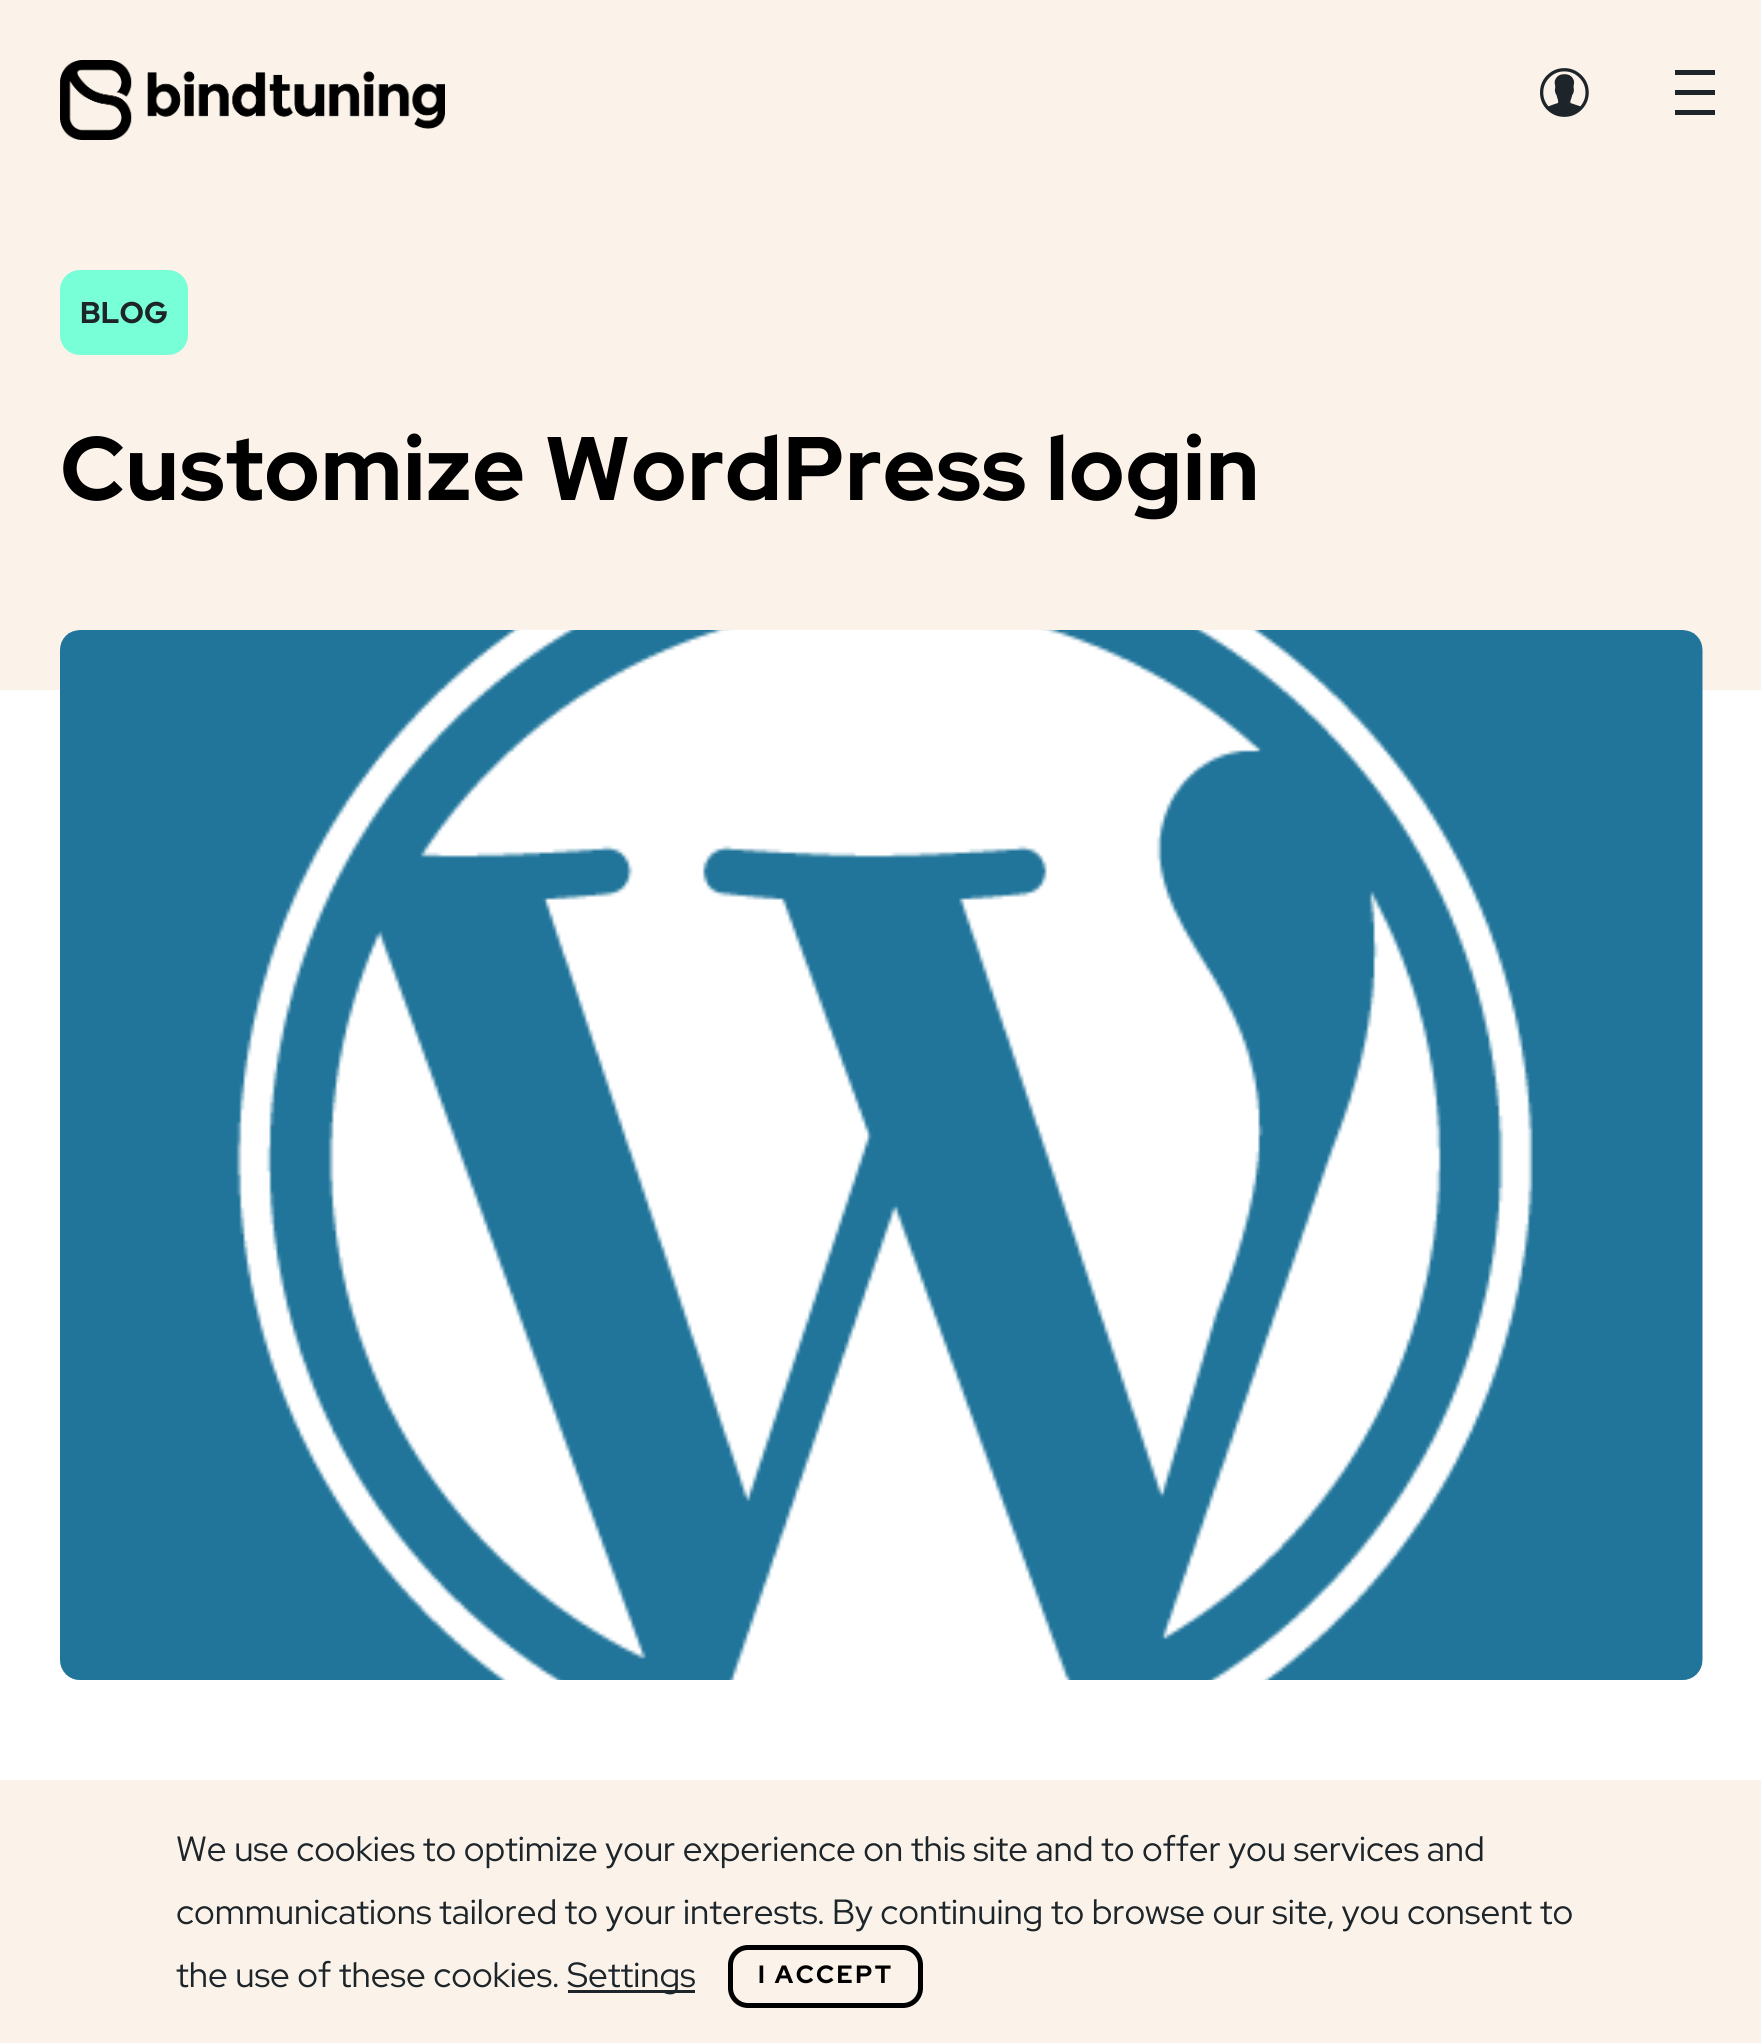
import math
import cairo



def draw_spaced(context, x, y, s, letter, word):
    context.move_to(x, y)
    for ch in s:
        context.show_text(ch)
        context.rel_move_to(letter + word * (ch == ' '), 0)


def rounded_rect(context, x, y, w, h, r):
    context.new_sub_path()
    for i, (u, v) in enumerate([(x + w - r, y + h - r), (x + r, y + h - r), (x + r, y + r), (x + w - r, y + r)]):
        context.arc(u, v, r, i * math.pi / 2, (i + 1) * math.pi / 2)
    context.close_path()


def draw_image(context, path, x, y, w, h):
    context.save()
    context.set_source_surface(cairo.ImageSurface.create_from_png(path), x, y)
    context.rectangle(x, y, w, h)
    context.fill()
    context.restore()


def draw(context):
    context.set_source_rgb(1, 1, 1)
    context.paint()
    context.set_source_rgb(251 / 255, 243 / 255, 233 / 255)
    context.rectangle(0, 0, 1761, 690)
    context.fill()
    draw_image(context, "images/1.png", 60, 60, 385, 80)
    draw_image(context, "images/2.png", 1540, 68, 49, 49)
    context.set_source_rgb(29 / 255, 37 / 255, 42 / 255)
    context.rectangle(1675, 70, 40, 5)
    context.fill()
    context.rectangle(1675, 90, 40, 5)
    context.fill()
    context.rectangle(1675, 110, 40, 5)
    context.fill()
    context.set_source_rgb(121 / 255, 1, 215 / 255)
    rounded_rect(context, 60, 270, 128, 85, 20)
    context.fill()
    draw_image(context, "images/3.png", 60, 630, 1643, 1050)
    context.set_source_rgb(251 / 255, 243 / 255, 233 / 255)
    context.rectangle(0, 1780, 1761, 263)
    context.fill()
    context.set_source_rgb(29 / 255, 37 / 255, 42 / 255)
    context.rectangle(568, 1990, 127, 3)
    context.fill()
    rounded_rect(context, 730.5, 1947.5, 190, 58, 17.5)
    context.set_source_rgb(0, 0, 0)
    context.set_line_width(5)
    context.stroke()
    context.select_font_face("Red Hat Display", cairo.FontSlant.NORMAL, cairo.FontWeight.BOLD)
    context.set_font_size(30)
    context.set_source_rgb(29 / 255, 37 / 255, 42 / 255)
    context.move_to(80, 323)
    context.show_text("BLOG")
    context.set_font_size(90)
    context.set_source_rgb(0, 0, 0)
    draw_spaced(context, 60, 500, "Customize WordPress login", 1, 0)
    context.select_font_face("Red Hat Display")
    context.set_font_size(35)
    context.set_source_rgb(29 / 255, 37 / 255, 42 / 255)
    context.move_to(176, 1861)
    context.show_text("We use cookies to optimize your experience on this site and to offer you services and")
    context.move_to(176, 1924)
    context.show_text("communications tailored to your interests. By continuing to browse our site, you consent to")
    context.move_to(176, 1987)
    context.show_text("the use of these cookies.")
    context.move_to(567, 1987)
    context.show_text("Settings")
    context.select_font_face("Red Hat Display", cairo.FontSlant.NORMAL, cairo.FontWeight.BOLD)
    context.set_font_size(25)
    context.set_source_rgb(0, 0, 0)
    draw_spaced(context, 758, 1983, "I ACCEPT", 2.5, 0)


surface = cairo.ImageSurface(cairo.Format.RGB24, 1761, 2043)
context = cairo.Context(surface)
options = cairo.FontOptions()
options.set_hint_metrics(cairo.HintMetrics.OFF)
options.set_hint_style(cairo.HintStyle.NONE)
context.set_font_options(options)
context.set_miter_limit(4)
draw(context)
surface.write_to_png("out.png")
